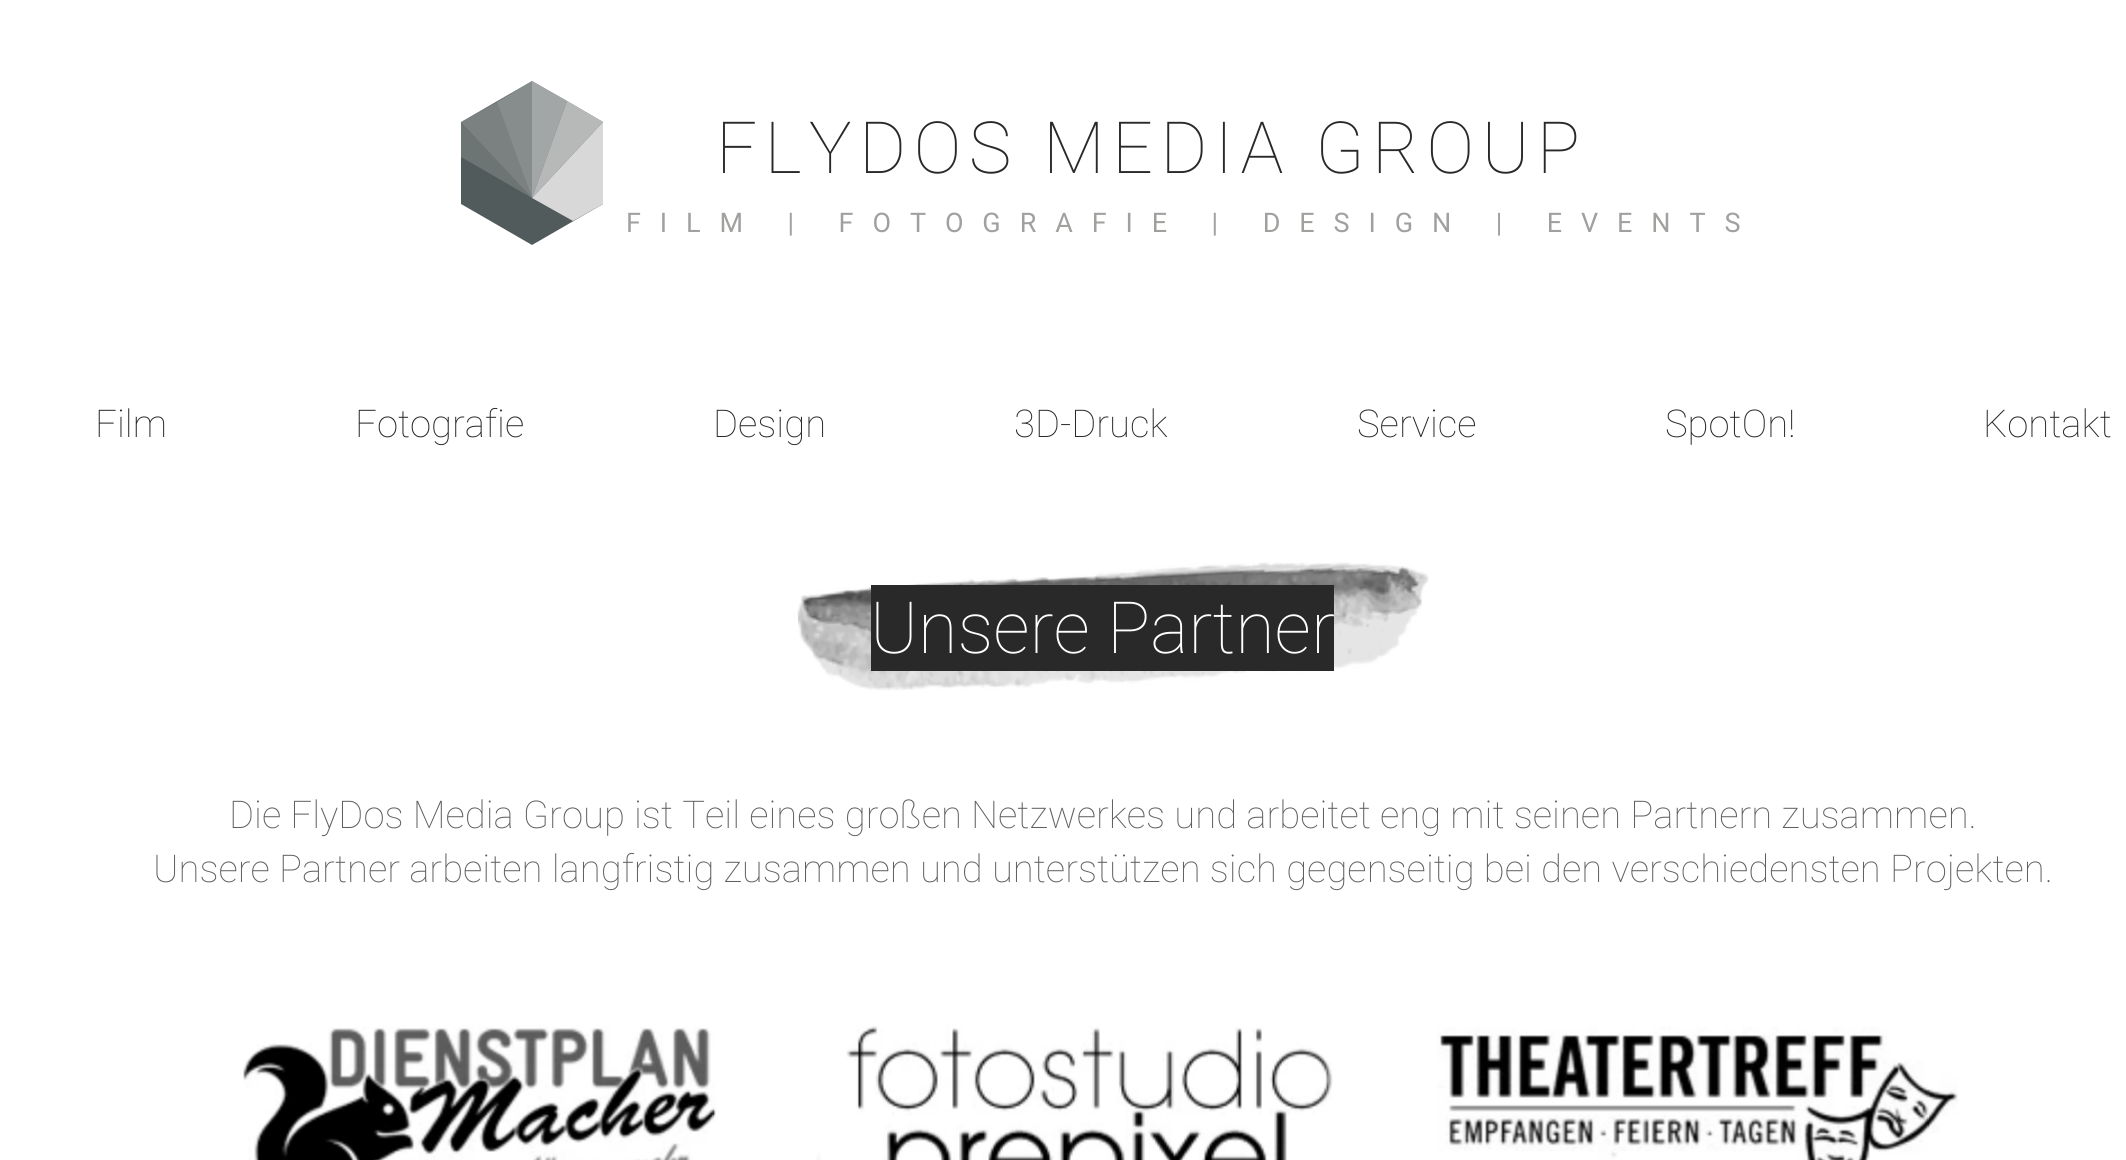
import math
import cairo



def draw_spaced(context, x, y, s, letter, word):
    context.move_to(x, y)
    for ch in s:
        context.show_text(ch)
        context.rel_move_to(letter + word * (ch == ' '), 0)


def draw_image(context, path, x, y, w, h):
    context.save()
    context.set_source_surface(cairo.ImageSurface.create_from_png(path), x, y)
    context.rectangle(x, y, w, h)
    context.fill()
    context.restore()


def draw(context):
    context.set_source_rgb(1, 1, 1)
    context.paint()
    context.set_source_rgb(82 / 255, 91 / 255, 91 / 255)
    context.new_path()
    context.move_to(567, 101)
    context.line_to(532, 81)
    context.line_to(461, 122)
    context.line_to(461, 204)
    context.line_to(532, 245)
    context.line_to(603, 204)
    context.line_to(603, 122)
    context.close_path()
    context.fill()
    context.set_source_rgb(109 / 255, 116 / 255, 116 / 255)
    context.new_path()
    context.move_to(461, 122)
    context.line_to(461, 157)
    context.line_to(532, 198)
    context.close_path()
    context.fill()
    context.set_source_rgb(216 / 255, 216 / 255, 216 / 255)
    context.new_path()
    context.move_to(573, 221)
    context.line_to(603, 204)
    context.line_to(603, 122)
    context.line_to(532, 198)
    context.close_path()
    context.fill()
    context.set_source_rgba(216 / 255, 216 / 255, 216 / 255, 0.75)
    context.new_path()
    context.move_to(532, 198)
    context.line_to(603, 122)
    context.line_to(567, 101)
    context.close_path()
    context.fill()
    context.set_source_rgba(216 / 255, 216 / 255, 216 / 255, 0.3)
    context.new_path()
    context.move_to(532, 198)
    context.line_to(497, 102)
    context.line_to(461, 122)
    context.close_path()
    context.fill()
    context.set_source_rgba(216 / 255, 216 / 255, 216 / 255, 0.6)
    context.new_path()
    context.move_to(532, 198)
    context.line_to(567, 101)
    context.line_to(532, 81)
    context.close_path()
    context.fill()
    context.set_source_rgba(216 / 255, 216 / 255, 216 / 255, 0.4)
    context.new_path()
    context.move_to(532, 81)
    context.line_to(497, 102)
    context.line_to(532, 198)
    context.close_path()
    context.fill()
    draw_image(context, "images/1.png", 797, 562, 632, 129)
    context.set_source_rgb(41 / 255, 41 / 255, 41 / 255)
    context.rectangle(871, 585, 463, 86)
    context.fill()
    draw_image(context, "images/2.png", 243, 1026, 473, 134)
    draw_image(context, "images/3.png", 816, 1026, 517, 134)
    draw_image(context, "images/4.png", 1437, 1027, 521, 133)
    context.select_font_face("Roboto Thin")
    context.set_font_size(72)
    draw_spaced(context, 716, 173, "FLYDOS MEDIA GROUP", 7.25, 0)
    context.select_font_face("Roboto")
    context.set_font_size(27)
    context.set_source_rgb(160 / 255, 160 / 255, 159 / 255)
    draw_spaced(context, 626, 232, "FILM | FOTOGRAFIE | DESIGN | EVENTS", 18.9, 0)
    context.select_font_face("Roboto Thin")
    context.set_font_size(38.25)
    context.set_source_rgb(41 / 255, 41 / 255, 41 / 255)
    context.move_to(95, 437)
    context.show_text("Film")
    context.move_to(355, 437)
    context.show_text("Fotografie")
    context.move_to(713, 437)
    context.show_text("Design")
    context.move_to(1014, 437)
    context.show_text("3D-Druck")
    context.move_to(1357, 437)
    context.show_text("Service")
    context.move_to(1665, 437)
    context.show_text("SpotOn!")
    context.move_to(1983, 437)
    context.show_text("Kontakt")
    context.set_font_size(72)
    context.set_source_rgb(1, 1, 1)
    context.move_to(870, 653)
    context.show_text("Unsere Partner")
    context.set_font_size(38.25)
    context.set_source_rgb(96 / 255, 94 / 255, 94 / 255)
    context.move_to(229, 828)
    context.show_text("Die FlyDos Media Group ist Teil eines großen Netzwerkes und arbeitet eng mit seinen Partnern zusammen.")
    context.move_to(153, 882)
    context.show_text("Unsere Partner arbeiten langfristig zusammen und unterstützen sich gegenseitig bei den verschiedensten Projekten.")


surface = cairo.ImageSurface(cairo.Format.RGB24, 2126, 1160)
context = cairo.Context(surface)
options = cairo.FontOptions()
options.set_hint_metrics(cairo.HintMetrics.OFF)
options.set_hint_style(cairo.HintStyle.NONE)
context.set_font_options(options)
context.set_miter_limit(4)
draw(context)
surface.write_to_png("out.png")
